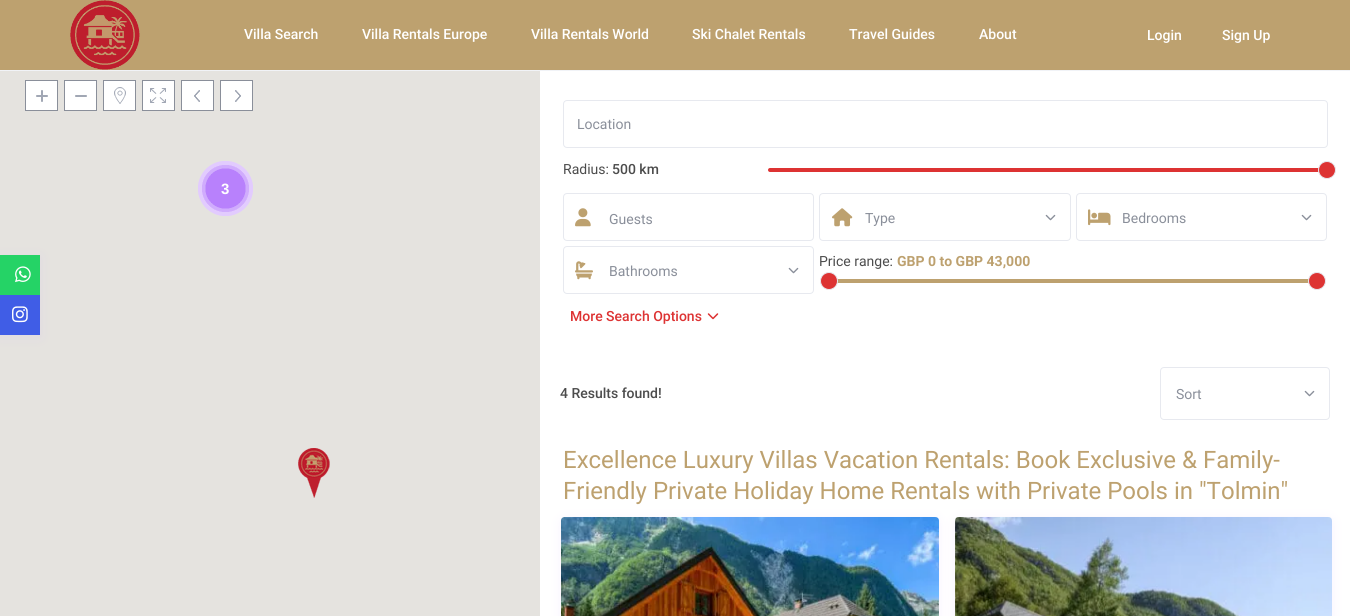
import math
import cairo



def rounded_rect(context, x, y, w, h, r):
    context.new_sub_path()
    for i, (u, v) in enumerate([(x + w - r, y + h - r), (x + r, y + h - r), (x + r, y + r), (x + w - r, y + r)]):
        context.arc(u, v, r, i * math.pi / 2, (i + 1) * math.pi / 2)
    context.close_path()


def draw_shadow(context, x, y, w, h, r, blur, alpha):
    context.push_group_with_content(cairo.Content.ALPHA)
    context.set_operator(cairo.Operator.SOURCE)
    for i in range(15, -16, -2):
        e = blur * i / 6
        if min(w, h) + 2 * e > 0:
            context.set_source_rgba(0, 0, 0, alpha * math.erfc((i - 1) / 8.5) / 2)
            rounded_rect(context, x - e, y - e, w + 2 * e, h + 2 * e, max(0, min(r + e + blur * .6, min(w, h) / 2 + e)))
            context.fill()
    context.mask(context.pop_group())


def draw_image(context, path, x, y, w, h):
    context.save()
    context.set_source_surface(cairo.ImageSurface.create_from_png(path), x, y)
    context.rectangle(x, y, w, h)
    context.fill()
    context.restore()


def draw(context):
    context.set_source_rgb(1, 1, 1)
    context.paint()
    context.set_source_rgb(229 / 255, 227 / 255, 223 / 255)
    context.rectangle(0, 71, 540, 545)
    context.fill()
    context.set_source_rgb(181 / 255, 127 / 255, 250 / 255)
    draw_shadow(context, 0, 257, 40, 80, 0, 5.5, 0.1)
    context.set_source_rgb(37 / 255, 211 / 255, 102 / 255)
    context.rectangle(0, 255, 40, 40)
    context.fill()
    draw_image(context, "images/1.png", 15, 266, 16, 17)
    context.set_source_rgb(64 / 255, 93 / 255, 230 / 255)
    context.rectangle(0, 295, 40, 40)
    context.fill()
    draw_image(context, "images/2.png", 12, 306, 16, 17)
    context.set_source_rgb(189 / 255, 161 / 255, 111 / 255)
    context.rectangle(0, 0, 1350, 70)
    context.fill()
    context.set_source_rgb(241 / 255, 243 / 255, 247 / 255)
    context.rectangle(0, 70, 1350, 1)
    context.fill()
    draw_image(context, "images/3.png", 70, 0, 70, 70)
    context.set_source_rgb(1, 1, 1)
    context.rectangle(26, 81, 31, 29)
    context.fill()
    draw_image(context, "images/4.png", 36, 90, 12, 12)
    context.rectangle(25.5, 80.5, 32, 30)
    context.set_source_rgb(138 / 255, 143 / 255, 154 / 255)
    context.set_line_width(1)
    context.stroke()
    context.set_source_rgb(1, 1, 1)
    context.rectangle(65, 81, 31, 29)
    context.fill()
    draw_image(context, "images/5.png", 75, 95, 12, 2)
    context.rectangle(64.5, 80.5, 32, 30)
    context.set_source_rgb(138 / 255, 143 / 255, 154 / 255)
    context.stroke()
    context.set_source_rgb(1, 1, 1)
    context.rectangle(104, 81, 31, 29)
    context.fill()
    draw_image(context, "images/6.png", 114, 87, 12, 17)
    context.rectangle(103.5, 80.5, 32, 30)
    context.set_source_rgb(138 / 255, 143 / 255, 154 / 255)
    context.stroke()
    context.set_source_rgb(1, 1, 1)
    context.rectangle(143, 81, 31, 29)
    context.fill()
    draw_image(context, "images/7.png", 150, 88, 16, 15)
    context.rectangle(142.5, 80.5, 32, 30)
    context.set_source_rgb(138 / 255, 143 / 255, 154 / 255)
    context.stroke()
    context.set_source_rgb(1, 1, 1)
    context.rectangle(182, 81, 31, 29)
    context.fill()
    draw_image(context, "images/8.png", 194, 90, 6, 12)
    context.rectangle(181.5, 80.5, 32, 30)
    context.set_source_rgb(138 / 255, 143 / 255, 154 / 255)
    context.stroke()
    context.set_source_rgb(1, 1, 1)
    context.rectangle(221, 81, 31, 29)
    context.fill()
    draw_image(context, "images/9.png", 235, 90, 6, 12)
    context.rectangle(220.5, 80.5, 32, 30)
    context.set_source_rgb(138 / 255, 143 / 255, 154 / 255)
    context.stroke()
    draw_image(context, "images/10.png", 198, 161, 55, 55)
    draw_image(context, "images/11.png", 298, 448, 32, 50)
    rounded_rect(context, 563.5, 100.5, 764, 47, 3.5)
    context.set_source_rgb(231 / 255, 233 / 255, 239 / 255)
    context.stroke()
    context.set_source_rgb(221 / 255, 51 / 255, 51 / 255)
    rounded_rect(context, 768, 168, 560, 4, 2)
    context.fill()
    context.arc(1327, 170, 8.5, 0, 2 * math.pi)
    context.fill_preserve()
    context.set_source_rgb(231 / 255, 233 / 255, 239 / 255)
    context.stroke()
    rounded_rect(context, 563.5, 193.5, 250, 47, 3.5)
    context.stroke()
    draw_image(context, "images/12.png", 575, 208, 16, 19)
    rounded_rect(context, 819.5, 193.5, 251, 47, 3.5)
    context.stroke()
    draw_image(context, "images/13.png", 832, 208, 21, 19)
    draw_image(context, "images/14.png", 1045, 214, 11, 7)
    rounded_rect(context, 1076.5, 193.5, 250, 47, 3.5)
    context.stroke()
    draw_image(context, "images/15.png", 1088, 209, 23, 17)
    draw_image(context, "images/14.png", 1301, 214, 11, 7)
    context.set_source_rgb(189 / 255, 161 / 255, 111 / 255)
    context.rectangle(829, 279, 488, 4)
    context.fill()
    context.set_source_rgb(221 / 255, 51 / 255, 51 / 255)
    context.arc(829, 281, 8.5, 0, 2 * math.pi)
    context.fill_preserve()
    context.set_source_rgb(231 / 255, 233 / 255, 239 / 255)
    context.stroke()
    context.set_source_rgb(221 / 255, 51 / 255, 51 / 255)
    context.arc(1317, 281, 8.5, 0, 2 * math.pi)
    context.fill_preserve()
    context.set_source_rgb(231 / 255, 233 / 255, 239 / 255)
    context.stroke()
    rounded_rect(context, 563.5, 246.5, 250, 47, 3.5)
    context.stroke()
    draw_image(context, "images/16.png", 575, 261, 18, 19)
    draw_image(context, "images/14.png", 788, 267, 11, 7)
    draw_image(context, "images/17.png", 707, 313, 12, 7)
    rounded_rect(context, 1160.5, 367.5, 169, 52, 3.5)
    context.stroke()
    draw_image(context, "images/14.png", 1304, 390, 11, 7)
    context.set_source_rgb(181 / 255, 127 / 255, 250 / 255)
    draw_shadow(context, 561, 519, 378, 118, 4, 5.5, 0.1)
    draw_shadow(context, 955, 519, 377, 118, 4, 5.5, 0.1)
    draw_image(context, "images/18.png", 561, 517, 378, 99)
    draw_image(context, "images/19.png", 955, 517, 377, 99)
    context.select_font_face("Roboto Medium")
    context.set_font_size(14)
    context.set_source_rgb(1, 1, 1)
    context.move_to(244, 39)
    context.show_text("Villa Search")
    context.move_to(362, 39)
    context.show_text("Villa Rentals Europe")
    context.move_to(531, 39)
    context.show_text("Villa Rentals World")
    context.move_to(692, 39)
    context.show_text("Ski Chalet Rentals")
    context.move_to(849, 39)
    context.show_text("Travel Guides")
    context.move_to(979, 39)
    context.show_text("About")
    context.move_to(1147, 40)
    context.show_text("Login")
    context.move_to(1222, 40)
    context.show_text("Sign Up")
    context.select_font_face("Liberation Sans", cairo.FontSlant.NORMAL, cairo.FontWeight.BOLD)
    context.set_font_size(15)
    context.move_to(221, 194)
    context.show_text("3")
    context.select_font_face("Roboto")
    context.set_font_size(14)
    context.set_source_rgb(138 / 255, 143 / 255, 154 / 255)
    context.move_to(577, 129)
    context.show_text("Location")
    context.set_source_rgb(76 / 255, 76 / 255, 76 / 255)
    context.move_to(563, 174)
    context.show_text("Radius:")
    context.select_font_face("Roboto Medium")
    context.move_to(612, 174)
    context.show_text("500 km")
    context.select_font_face("Roboto")
    context.set_source_rgb(138 / 255, 143 / 255, 154 / 255)
    context.move_to(609, 224)
    context.show_text("Guests")
    context.move_to(865, 223)
    context.show_text("Type")
    context.move_to(1122, 223)
    context.show_text("Bedrooms")
    context.set_source_rgb(76 / 255, 76 / 255, 76 / 255)
    context.move_to(819, 266)
    context.show_text("Price range:")
    context.select_font_face("Roboto", cairo.FontSlant.NORMAL, cairo.FontWeight.BOLD)
    context.set_source_rgb(189 / 255, 161 / 255, 111 / 255)
    context.move_to(897, 266)
    context.show_text("GBP 0 to GBP 43,000")
    context.select_font_face("Roboto")
    context.set_source_rgb(138 / 255, 143 / 255, 154 / 255)
    context.move_to(609, 276)
    context.show_text("Bathrooms")
    context.select_font_face("Roboto Medium")
    context.set_source_rgb(221 / 255, 51 / 255, 51 / 255)
    context.move_to(570, 321)
    context.show_text("More Search Options")
    context.set_source_rgb(76 / 255, 76 / 255, 76 / 255)
    context.move_to(560, 398)
    context.show_text("4 Results found!")
    context.select_font_face("Roboto")
    context.set_source_rgb(138 / 255, 143 / 255, 154 / 255)
    context.move_to(1176, 399)
    context.show_text("Sort")
    context.set_font_size(24)
    context.set_source_rgb(189 / 255, 161 / 255, 111 / 255)
    context.move_to(563, 468)
    context.show_text("Excellence Luxury Villas Vacation Rentals: Book Exclusive & Family-")
    context.move_to(563, 499)
    context.show_text("Friendly Private Holiday Home Rentals with Private Pools in \"Tolmin\"")


surface = cairo.ImageSurface(cairo.Format.RGB24, 1350, 616)
context = cairo.Context(surface)
options = cairo.FontOptions()
options.set_hint_metrics(cairo.HintMetrics.OFF)
options.set_hint_style(cairo.HintStyle.NONE)
context.set_font_options(options)
context.set_miter_limit(4)
draw(context)
surface.write_to_png("out.png")
